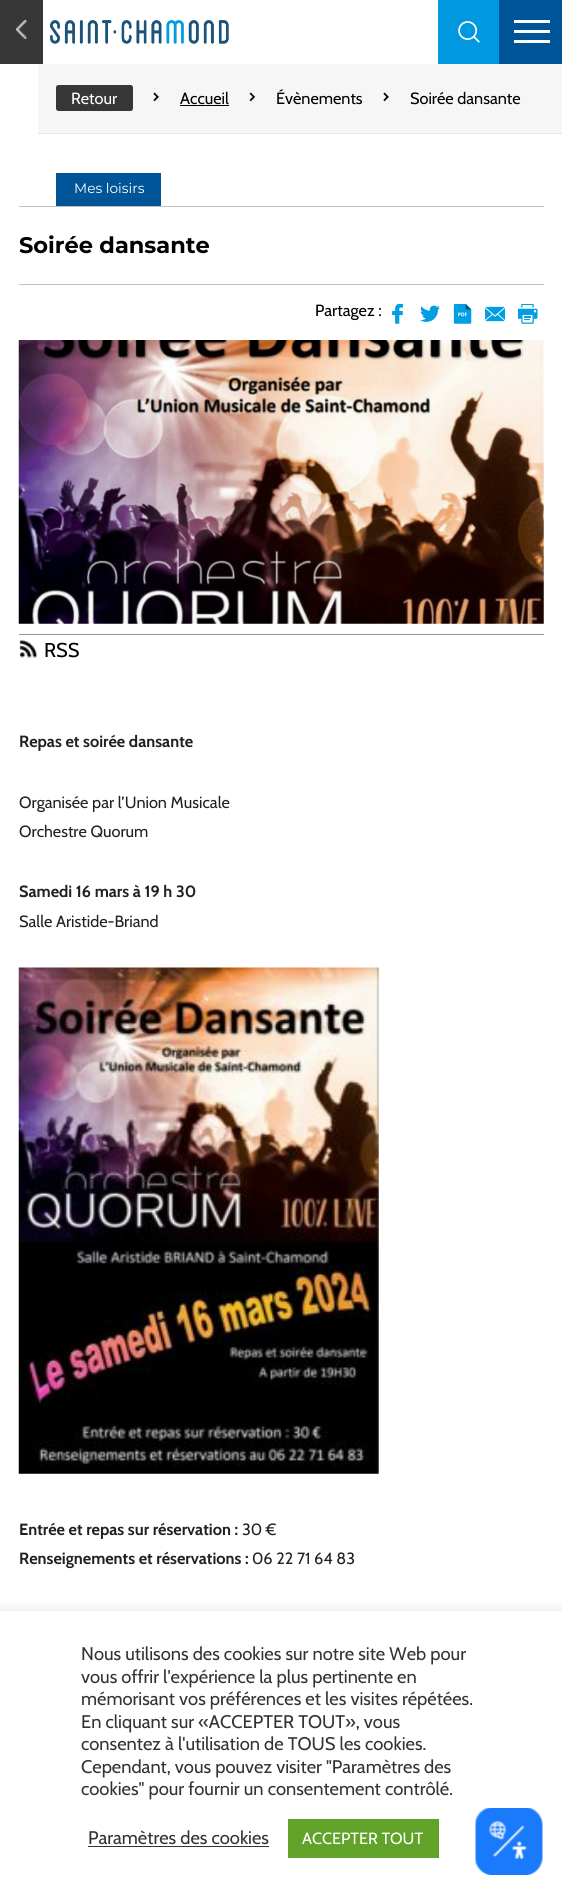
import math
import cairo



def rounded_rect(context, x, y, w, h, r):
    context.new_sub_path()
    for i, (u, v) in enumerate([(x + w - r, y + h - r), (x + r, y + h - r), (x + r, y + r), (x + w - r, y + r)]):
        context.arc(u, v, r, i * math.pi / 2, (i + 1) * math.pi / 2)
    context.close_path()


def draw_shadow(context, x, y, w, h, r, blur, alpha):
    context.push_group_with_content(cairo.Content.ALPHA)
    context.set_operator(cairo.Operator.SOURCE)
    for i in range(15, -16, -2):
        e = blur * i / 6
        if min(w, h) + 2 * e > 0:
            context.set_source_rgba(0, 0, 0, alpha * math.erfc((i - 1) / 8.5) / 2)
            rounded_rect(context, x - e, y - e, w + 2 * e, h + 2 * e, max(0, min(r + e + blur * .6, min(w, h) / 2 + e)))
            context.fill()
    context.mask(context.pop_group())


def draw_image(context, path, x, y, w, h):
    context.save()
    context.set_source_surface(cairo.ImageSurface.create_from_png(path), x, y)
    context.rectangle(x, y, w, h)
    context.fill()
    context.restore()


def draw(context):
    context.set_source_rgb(1, 1, 1)
    context.paint()
    context.set_source_rgb(55 / 255, 55 / 255, 55 / 255)
    context.rectangle(0, 0, 43, 64)
    context.fill()
    draw_image(context, "images/1.png", 16, 20, 11, 19)
    context.set_source_rgb(0, 152 / 255, 223 / 255)
    context.rectangle(438, 0, 61, 64)
    context.fill()
    draw_image(context, "images/2.png", 458, 21, 22, 22)
    context.set_source_rgb(0, 85 / 255, 153 / 255)
    context.rectangle(499, 0, 63, 64)
    context.fill()
    context.set_source_rgb(1, 1, 1)
    context.rectangle(514, 20, 36, 3)
    context.fill()
    context.rectangle(514, 30, 36, 3)
    context.fill()
    context.rectangle(514, 40, 36, 3)
    context.fill()
    draw_image(context, "images/3.png", 50, 20, 179, 24)
    context.set_source_rgb(246 / 255, 246 / 255, 246 / 255)
    context.rectangle(38, 64, 524, 69)
    context.fill()
    context.set_source_rgb(233 / 255, 233 / 255, 233 / 255)
    context.rectangle(38, 133, 524, 1)
    context.fill()
    context.set_source_rgb(55 / 255, 55 / 255, 55 / 255)
    rounded_rect(context, 56, 85, 77, 26, 2.5)
    context.fill()
    draw_image(context, "images/4.png", 153, 92, 6, 10)
    context.set_source_rgb(0, 0, 0)
    context.rectangle(180, 105, 49, 1)
    context.fill()
    draw_image(context, "images/5.png", 249, 92, 6, 10)
    draw_image(context, "images/6.png", 383, 92, 6, 10)
    context.set_source_rgb(0, 85 / 255, 153 / 255)
    context.rectangle(56, 173, 105, 33)
    context.fill()
    context.set_source_rgb(192 / 255, 192 / 255, 192 / 255)
    context.rectangle(19, 206, 525, 1)
    context.fill()
    context.rectangle(19, 284, 525, 1)
    context.fill()
    draw_image(context, "images/7.png", 392, 304, 11, 20)
    draw_image(context, "images/8.png", 420, 305, 20, 17)
    draw_image(context, "images/9.png", 453, 304, 19, 20)
    draw_image(context, "images/10.png", 485, 306, 20, 16)
    draw_image(context, "images/11.png", 518, 304, 20, 20)
    draw_image(context, "images/12.png", 18, 340, 526, 284)
    context.set_source_rgb(149 / 255, 148 / 255, 148 / 255)
    context.rectangle(19, 634, 525, 1)
    context.fill()
    draw_image(context, "images/13.png", 19, 639, 19, 19)
    draw_image(context, "images/14.png", 18, 967, 361, 507)
    context.set_source_rgb(172 / 255, 171 / 255, 171 / 255)
    draw_shadow(context, 0, 1610, 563, 284, 0, 6, 0.3)
    context.set_source_rgb(1, 1, 1)
    context.rectangle(0, 1611, 562, 284)
    context.fill()
    context.set_source_rgb(51 / 255, 51 / 255, 51 / 255)
    context.rectangle(88, 1846, 181, 1)
    context.fill()
    context.set_source_rgb(97 / 255, 162 / 255, 41 / 255)
    context.rectangle(288, 1819, 151, 39)
    context.fill()
    draw_image(context, "images/15.png", 475, 1808, 68, 67)
    context.select_font_face("Cabin")
    context.set_font_size(16.25)
    context.set_source_rgb(1, 1, 1)
    context.move_to(71, 104)
    context.show_text("Retour")
    context.set_source_rgb(0, 0, 0)
    context.move_to(180, 104)
    context.show_text("Accueil")
    context.move_to(276, 104)
    context.show_text("Évènements")
    context.move_to(410, 104)
    context.show_text("Soirée dansante")
    context.select_font_face("Montserrat")
    context.set_font_size(13.75)
    context.set_source_rgb(1, 1, 1)
    context.move_to(74, 193)
    context.show_text("Mes loisirs")
    context.select_font_face("Montserrat", cairo.FontSlant.NORMAL, cairo.FontWeight.BOLD)
    context.set_font_size(22.5)
    context.set_source_rgb(0, 0, 0)
    context.move_to(19, 253)
    context.show_text("Soirée dansante")
    context.select_font_face("Cabin")
    context.set_font_size(16.25)
    context.move_to(315, 316)
    context.show_text("Partagez :")
    context.set_font_size(20)
    context.move_to(44, 657)
    context.show_text("RSS")
    context.select_font_face("Cabin", cairo.FontSlant.NORMAL, cairo.FontWeight.BOLD)
    context.set_font_size(16.25)
    context.set_source_rgb(33 / 255, 33 / 255, 33 / 255)
    context.move_to(19, 747)
    context.show_text("Repas et soirée dansante")
    context.select_font_face("Cabin")
    context.move_to(19, 808)
    context.show_text("Organisée par l’Union Musicale")
    context.move_to(19, 837)
    context.show_text("Orchestre Quorum")
    context.select_font_face("Cabin", cairo.FontSlant.NORMAL, cairo.FontWeight.BOLD)
    context.move_to(19, 897)
    context.show_text("Samedi 16 mars à 19 h 30")
    context.select_font_face("Cabin")
    context.move_to(19, 927)
    context.show_text("Salle Aristide-Briand")
    context.select_font_face("Cabin", cairo.FontSlant.NORMAL, cairo.FontWeight.BOLD)
    context.move_to(19, 1535)
    context.show_text("Entrée et repas sur réservation :")
    context.select_font_face("Cabin")
    context.move_to(242, 1535)
    context.show_text("30 €")
    context.select_font_face("Cabin", cairo.FontSlant.NORMAL, cairo.FontWeight.BOLD)
    context.move_to(19, 1564)
    context.show_text("Renseignements et réservations :")
    context.select_font_face("Cabin")
    context.move_to(252, 1564)
    context.show_text("06 22 71 64 83")
    context.set_font_size(18.3)
    context.set_source_rgb(51 / 255, 51 / 255, 51 / 255)
    context.move_to(81, 1660)
    context.show_text("Nous utilisons des cookies sur notre site Web pour")
    context.move_to(81, 1683)
    context.show_text("vous offrir l'expérience la plus pertinente en")
    context.move_to(81, 1705)
    context.show_text("mémorisant vos préférences et les visites répétées.")
    context.move_to(81, 1728)
    context.show_text("En cliquant sur «ACCEPTER TOUT», vous")
    context.move_to(81, 1750)
    context.show_text("consentez à l'utilisation de TOUS les cookies.")
    context.move_to(81, 1773)
    context.show_text("Cependant, vous pouvez visiter \"Paramètres des")
    context.move_to(81, 1795)
    context.show_text("cookies\" pour fournir un consentement contrôlé.")
    context.move_to(88, 1844)
    context.show_text("Paramètres des cookies")
    context.set_font_size(16.25)
    context.set_source_rgb(1, 1, 1)
    context.move_to(302, 1844)
    context.show_text("ACCEPTER TOUT")


surface = cairo.ImageSurface(cairo.Format.RGB24, 562, 1895)
context = cairo.Context(surface)
options = cairo.FontOptions()
options.set_hint_metrics(cairo.HintMetrics.OFF)
options.set_hint_style(cairo.HintStyle.NONE)
context.set_font_options(options)
context.set_miter_limit(4)
draw(context)
surface.write_to_png("out.png")
